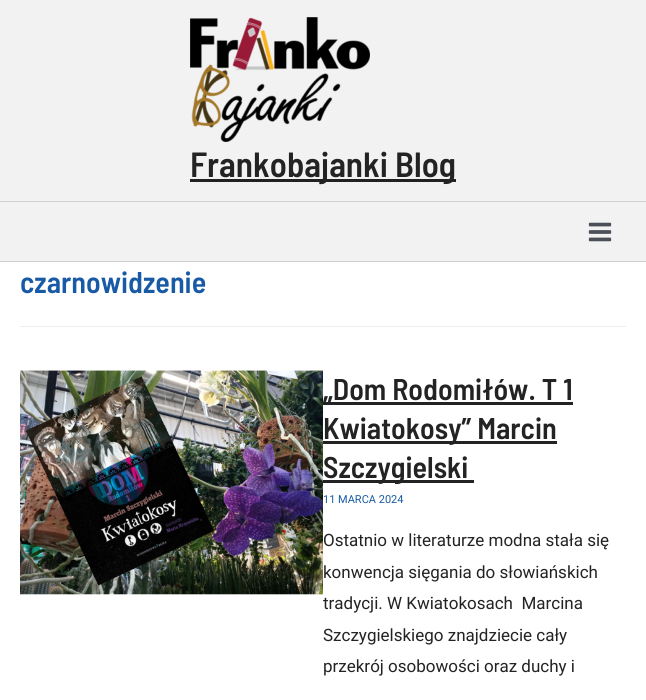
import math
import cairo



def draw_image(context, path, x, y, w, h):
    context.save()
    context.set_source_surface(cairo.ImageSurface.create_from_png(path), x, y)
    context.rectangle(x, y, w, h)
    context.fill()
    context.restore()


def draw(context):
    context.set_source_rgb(1, 1, 1)
    context.paint()
    context.set_source_rgb(242 / 255, 242 / 255, 242 / 255)
    context.rectangle(0, 0, 646, 201)
    context.fill()
    context.set_source_rgb(209 / 255, 209 / 255, 209 / 255)
    context.rectangle(0, 201, 646, 1)
    context.fill()
    draw_image(context, "images/1.png", 190, 17, 180, 125)
    context.set_source_rgb(34 / 255, 34 / 255, 34 / 255)
    context.rectangle(190, 179, 266, 3)
    context.fill()
    context.set_source_rgb(242 / 255, 242 / 255, 242 / 255)
    context.rectangle(0, 202, 646, 59)
    context.fill()
    context.set_source_rgb(209 / 255, 209 / 255, 209 / 255)
    context.rectangle(0, 261, 646, 1)
    context.fill()
    draw_image(context, "images/2.png", 588, 222, 24, 20)
    context.set_source_rgb(238 / 255, 238 / 255, 238 / 255)
    context.rectangle(20, 326, 606, 1)
    context.fill()
    draw_image(context, "images/3.png", 20, 370, 303, 225)
    context.set_source_rgb(35 / 255, 35 / 255, 35 / 255)
    context.rectangle(323, 402, 250, 3)
    context.fill()
    context.rectangle(323, 441, 234, 3)
    context.fill()
    context.rectangle(323, 480, 151, 3)
    context.fill()
    context.select_font_face("Barlow Semi Condensed SemiBold")
    context.set_font_size(35)
    context.move_to(190, 177)
    context.show_text("Frankobajanki Blog")
    context.set_font_size(30)
    context.set_source_rgb(24 / 255, 90 / 255, 165 / 255)
    context.move_to(20, 293)
    context.show_text("czarnowidzenie")
    context.set_source_rgb(35 / 255, 35 / 255, 35 / 255)
    context.move_to(323, 400)
    context.show_text("„Dom Rodomiłów. T 1")
    context.move_to(323, 439)
    context.show_text("Kwiatokosy” Marcin")
    context.move_to(323, 478)
    context.show_text("Szczygielski")
    context.select_font_face("Roboto")
    context.set_font_size(11)
    context.set_source_rgb(24 / 255, 90 / 255, 165 / 255)
    context.move_to(323, 503)
    context.show_text("11 MARCA 2024")
    context.set_font_size(17)
    context.set_source_rgb(35 / 255, 35 / 255, 35 / 255)
    context.move_to(323, 546)
    context.show_text("Ostatnio w literaturze modna stała się")
    context.move_to(323, 578)
    context.show_text("konwencja sięgania do słowiańskich")
    context.move_to(323, 609)
    context.show_text("tradycji. W Kwiatokosach  Marcina")
    context.move_to(323, 641)
    context.show_text("Szczygielskiego znajdziecie cały")
    context.move_to(323, 672)
    context.show_text("przekrój osobowości oraz duchy i")


surface = cairo.ImageSurface(cairo.Format.RGB24, 646, 700)
context = cairo.Context(surface)
options = cairo.FontOptions()
options.set_hint_metrics(cairo.HintMetrics.OFF)
options.set_hint_style(cairo.HintStyle.NONE)
context.set_font_options(options)
context.set_miter_limit(4)
draw(context)
surface.write_to_png("out.png")
